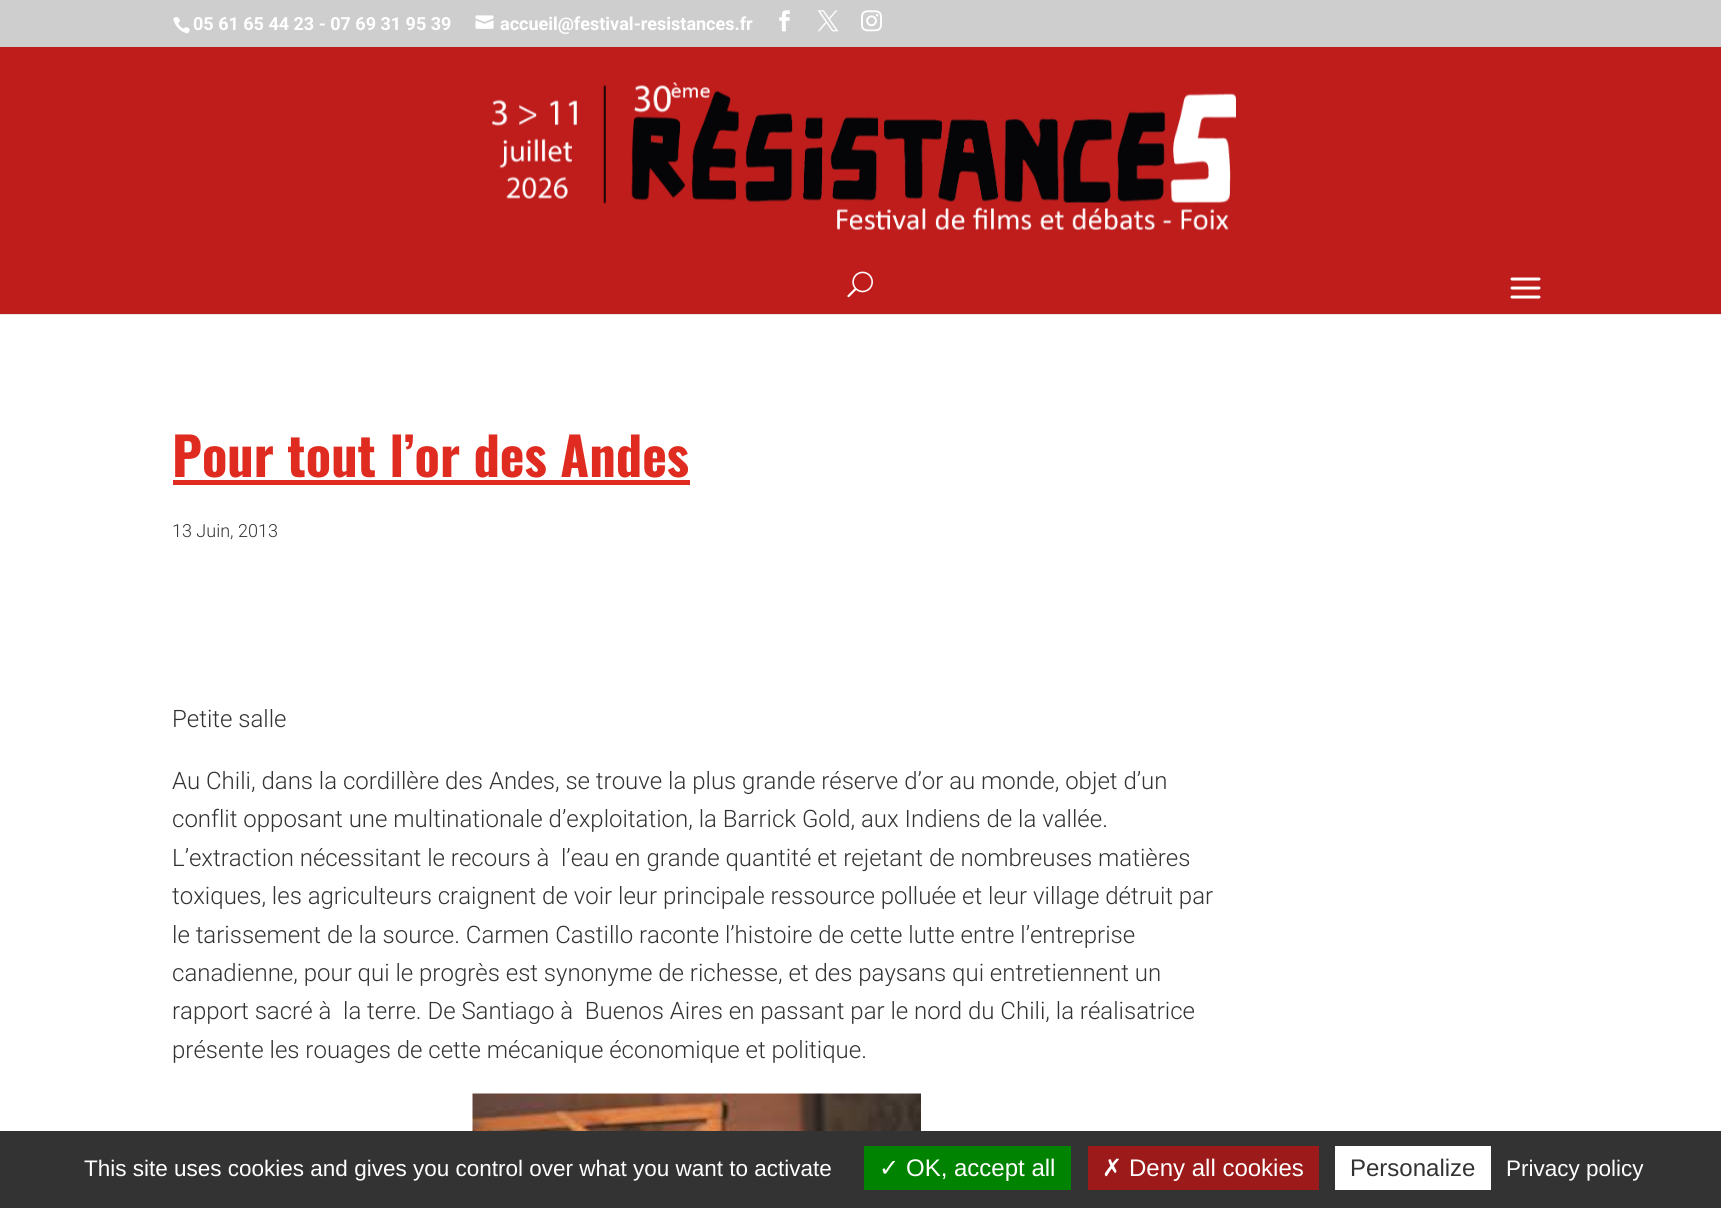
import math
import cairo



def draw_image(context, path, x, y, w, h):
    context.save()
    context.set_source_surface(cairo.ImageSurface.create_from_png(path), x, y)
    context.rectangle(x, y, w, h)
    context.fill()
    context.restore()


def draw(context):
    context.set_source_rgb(1, 1, 1)
    context.paint()
    context.set_source_rgb(206 / 255, 206 / 255, 206 / 255)
    context.rectangle(0, 0, 1721, 47)
    context.fill()
    draw_image(context, "images/1.png", 173, 17, 17, 17)
    draw_image(context, "images/2.png", 475, 15, 19, 14)
    draw_image(context, "images/3.png", 779, 10, 11, 22)
    draw_image(context, "images/4.png", 817, 10, 22, 22)
    draw_image(context, "images/5.png", 861, 10, 21, 22)
    context.set_source_rgb(230 / 255, 230 / 255, 230 / 255)
    context.rectangle(0, 314, 1721, 1)
    context.fill()
    context.set_source_rgb(191 / 255, 28 / 255, 28 / 255)
    context.rectangle(0, 47, 1721, 267)
    context.fill()
    draw_image(context, "images/6.png", 492, 82, 744, 149)
    draw_image(context, "images/7.png", 847, 271, 26, 27)
    draw_image(context, "images/8.png", 1510, 277, 31, 22)
    context.set_source_rgb(224 / 255, 43 / 255, 32 / 255)
    context.rectangle(173, 480, 517, 5)
    context.fill()
    draw_image(context, "images/9.png", 472, 1093, 449, 38)
    context.set_source_rgb(51 / 255, 51 / 255, 51 / 255)
    context.rectangle(0, 1131, 1721, 77)
    context.fill()
    context.set_source_rgb(0, 131 / 255, 0)
    context.rectangle(864, 1146, 207, 44)
    context.fill()
    context.set_source_rgb(156 / 255, 26 / 255, 26 / 255)
    context.rectangle(1088, 1146, 231, 44)
    context.fill()
    context.set_source_rgb(1, 1, 1)
    context.rectangle(1335, 1146, 156, 44)
    context.fill()
    context.select_font_face("Roboto", cairo.FontSlant.NORMAL, cairo.FontWeight.BOLD)
    context.set_font_size(18)
    context.move_to(193, 30)
    context.show_text("05 61 65 44 23 - 07 69 31 95 39")
    context.move_to(500, 30)
    context.show_text("accueil@festival-resistances.fr")
    context.select_font_face("Oswald", cairo.FontSlant.NORMAL, cairo.FontWeight.BOLD)
    context.set_font_size(52.5)
    context.set_source_rgb(224 / 255, 43 / 255, 32 / 255)
    context.move_to(172, 477)
    context.show_text("Pour tout l’or des Andes")
    context.select_font_face("Roboto Light")
    context.set_font_size(18)
    context.set_source_rgb(51 / 255, 51 / 255, 51 / 255)
    context.move_to(172, 537)
    context.show_text("13 Juin, 2013")
    context.set_font_size(24)
    context.move_to(172, 727)
    context.show_text("Petite salle")
    context.move_to(172, 789)
    context.show_text("Au Chili, dans la cordillère des Andes, se trouve la plus grande réserve d’or au monde, objet d’un")
    context.move_to(172, 827)
    context.show_text("conflit opposant une multinationale d’exploitation, la Barrick Gold, aux Indiens de la vallée.")
    context.move_to(172, 866)
    context.show_text("L’extraction nécessitant le recours à  l’eau en grande quantité et rejetant de nombreuses matières")
    context.move_to(172, 904)
    context.show_text("toxiques, les agriculteurs craignent de voir leur principale ressource polluée et leur village détruit par")
    context.move_to(172, 943)
    context.show_text("le tarissement de la source. Carmen Castillo raconte l’histoire de cette lutte entre l’entreprise")
    context.move_to(172, 981)
    context.show_text("canadienne, pour qui le progrès est synonyme de richesse, et des paysans qui entretiennent un")
    context.move_to(172, 1019)
    context.show_text("rapport sacré à  la terre. De Santiago à  Buenos Aires en passant par le nord du Chili, la réalisatrice")
    context.move_to(172, 1058)
    context.show_text("présente les rouages de cette mécanique économique et politique.")
    context.select_font_face("Liberation Sans")
    context.set_font_size(22.5)
    context.set_source_rgb(1, 1, 1)
    context.move_to(84, 1176)
    context.show_text("This site uses cookies and gives you control over what you want to activate")
    context.select_font_face("DejaVu Sans")
    context.set_font_size(24)
    context.move_to(879, 1176)
    context.show_text("✓")
    context.select_font_face("Liberation Sans")
    context.move_to(906, 1176)
    context.show_text("OK, accept all")
    context.select_font_face("DejaVu Sans")
    context.move_to(1102, 1176)
    context.show_text("✗")
    context.select_font_face("Liberation Sans")
    context.move_to(1129, 1176)
    context.show_text("Deny all cookies")
    context.set_source_rgb(51 / 255, 51 / 255, 51 / 255)
    context.move_to(1350, 1176)
    context.show_text("Personalize")
    context.set_font_size(22.5)
    context.set_source_rgb(1, 1, 1)
    context.move_to(1506, 1176)
    context.show_text("Privacy policy")


surface = cairo.ImageSurface(cairo.Format.RGB24, 1721, 1208)
context = cairo.Context(surface)
options = cairo.FontOptions()
options.set_hint_metrics(cairo.HintMetrics.OFF)
options.set_hint_style(cairo.HintStyle.NONE)
context.set_font_options(options)
context.set_miter_limit(4)
draw(context)
surface.write_to_png("out.png")
